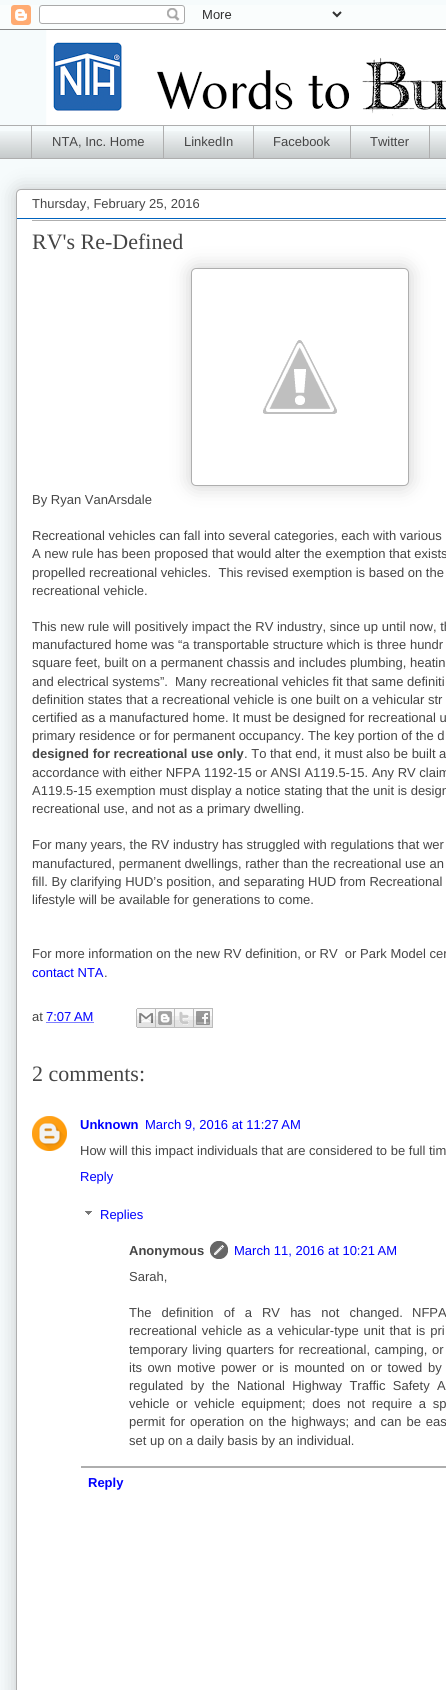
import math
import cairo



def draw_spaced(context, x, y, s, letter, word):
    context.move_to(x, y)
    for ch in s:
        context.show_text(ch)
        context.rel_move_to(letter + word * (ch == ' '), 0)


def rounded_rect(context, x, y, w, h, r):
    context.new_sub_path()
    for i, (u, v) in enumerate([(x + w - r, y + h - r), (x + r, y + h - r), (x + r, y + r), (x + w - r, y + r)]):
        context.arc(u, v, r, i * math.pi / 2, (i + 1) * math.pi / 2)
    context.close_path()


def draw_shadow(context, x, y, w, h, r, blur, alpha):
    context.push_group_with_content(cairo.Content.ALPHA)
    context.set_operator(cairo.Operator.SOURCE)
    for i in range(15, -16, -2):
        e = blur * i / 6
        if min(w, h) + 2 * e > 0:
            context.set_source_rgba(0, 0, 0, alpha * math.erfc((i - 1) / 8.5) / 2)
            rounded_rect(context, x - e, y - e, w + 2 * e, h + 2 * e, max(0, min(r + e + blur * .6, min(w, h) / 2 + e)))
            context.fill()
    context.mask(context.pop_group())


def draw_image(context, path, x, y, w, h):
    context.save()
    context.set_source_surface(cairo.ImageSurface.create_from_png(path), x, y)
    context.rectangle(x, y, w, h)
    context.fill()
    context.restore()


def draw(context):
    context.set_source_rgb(246 / 255, 251 / 255, 252 / 255)
    context.paint()
    draw_image(context, "images/1.png", 0, 5, 446, 25)
    draw_image(context, "images/2.png", 46, 30, 400, 95)
    draw_image(context, "images/3.png", 0, 131, 446, 27)
    context.set_source_rgb(174 / 255, 174 / 255, 174 / 255)
    context.rectangle(0, 125, 446, 1)
    context.fill()
    context.rectangle(31, 125, 1, 34)
    context.fill()
    context.rectangle(163, 125, 1, 34)
    context.fill()
    context.rectangle(253, 125, 1, 34)
    context.fill()
    context.rectangle(350, 125, 1, 34)
    context.fill()
    context.rectangle(429, 125, 1, 34)
    context.fill()
    context.rectangle(0, 158, 446, 1)
    context.fill()
    context.set_source_rgb(0, 0, 0)
    draw_shadow(context, 16, 189, 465, 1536, 5, 10, 0.2)
    context.set_source_rgb(1, 1, 1)
    rounded_rect(context, 16.5, 189.5, 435, 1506, 4.5)
    context.fill_preserve()
    context.set_source_rgb(174 / 255, 174 / 255, 174 / 255)
    context.set_line_width(1)
    context.stroke()
    context.set_source_rgb(0, 99 / 255, 190 / 255)
    context.rectangle(17, 218, 429, 1)
    context.fill()
    context.set_source_rgb(174 / 255, 174 / 255, 174 / 255)
    context.rectangle(32, 220, 414, 1)
    context.fill()
    context.set_source_rgb(0, 0, 0)
    draw_shadow(context, 191, 268, 218, 218, 5, 10, 0.2)
    context.set_source_rgb(1, 1, 1)
    rounded_rect(context, 191.5, 268.5, 217, 217, 4.5)
    context.fill_preserve()
    context.set_source_rgb(174 / 255, 174 / 255, 174 / 255)
    context.stroke()
    draw_image(context, "images/4.png", 263, 340, 74, 74)
    context.new_path()
    context.move_to(46.5, 1022.5)
    context.line_to(94, 1022.5)
    context.set_source_rgb(0, 0, 1)
    context.set_dash([1, 1])
    context.stroke()
    draw_image(context, "images/5.png", 136, 1008, 20, 20)
    draw_image(context, "images/6.png", 156, 1008, 19, 20)
    draw_image(context, "images/7.png", 175, 1008, 19, 20)
    draw_image(context, "images/8.png", 194, 1008, 19, 20)
    draw_image(context, "images/9.png", 32, 1116, 35, 35)
    draw_image(context, "images/10.png", 85, 1211, 7, 4)
    draw_image(context, "images/11.png", 210, 1241, 18, 18)
    context.set_source_rgb(174 / 255, 174 / 255, 174 / 255)
    context.rectangle(81, 1466, 365, 2)
    context.fill()
    context.select_font_face("Liberation Sans")
    context.set_font_size(13)
    context.set_source_rgb(69 / 255, 69 / 255, 69 / 255)
    context.move_to(52, 146)
    context.show_text("NTA, Inc. Home")
    context.move_to(184, 146)
    context.show_text("LinkedIn")
    context.move_to(273, 146)
    context.show_text("Facebook")
    context.move_to(370, 146)
    context.show_text("Twitter")
    context.move_to(32, 208)
    context.show_text("Thursday, February 25, 2016")
    context.select_font_face("Liberation Serif")
    context.set_font_size(22)
    context.move_to(32, 249)
    context.show_text("RV's Re-Defined")
    context.select_font_face("Liberation Sans")
    context.set_font_size(13)
    context.move_to(32, 504)
    context.show_text("By Ryan VanArsdale")
    context.move_to(32, 540)
    context.show_text("Recreational vehicles can fall into several categories, each with various")
    context.move_to(32, 558)
    context.show_text("A new rule has been proposed that would alter the exemption that exists")
    context.move_to(32, 577)
    context.show_text("propelled recreational vehicles.  This revised exemption is based on the")
    context.move_to(32, 595)
    context.show_text("recreational vehicle.")
    context.move_to(32, 631)
    context.show_text("This new rule will positively impact the RV industry, since up until now, th")
    context.move_to(32, 649)
    context.show_text("manufactured home was “a transportable structure which is three hundr")
    context.move_to(32, 667)
    context.show_text("square feet, built on a permanent chassis and includes plumbing, heatin")
    context.move_to(32, 686)
    context.show_text("and electrical systems”.  Many recreational vehicles fit that same definiti")
    context.move_to(32, 704)
    context.show_text("definition states that a recreational vehicle is one built on a vehicular str")
    context.move_to(32, 722)
    context.show_text("certified as a manufactured home. It must be designed for recreational u")
    context.move_to(32, 740)
    context.show_text("primary residence or for permanent occupancy. The key portion of the d")
    context.select_font_face("Liberation Sans", cairo.FontSlant.NORMAL, cairo.FontWeight.BOLD)
    context.move_to(32, 758)
    context.show_text("designed for recreational use only")
    context.select_font_face("Liberation Sans")
    context.move_to(244, 758)
    context.show_text(". To that end, it must also be built a")
    context.move_to(32, 777)
    context.show_text("accordance with either NFPA 1192-15 or ANSI A119.5-15. Any RV claim")
    context.move_to(32, 795)
    context.show_text("A119.5-15 exemption must display a notice stating that the unit is design")
    context.move_to(32, 813)
    context.show_text("recreational use, and not as a primary dwelling.")
    context.move_to(32, 849)
    context.show_text("For many years, the RV industry has struggled with regulations that wer")
    context.move_to(32, 868)
    context.show_text("manufactured, permanent dwellings, rather than the recreational use an")
    context.move_to(32, 886)
    context.show_text("fill. By clarifying HUD’s position, and separating HUD from Recreational")
    context.move_to(32, 904)
    context.show_text("lifestyle will be available for generations to come.")
    context.move_to(32, 958)
    context.show_text("For more information on the new RV definition, or RV  or Park Model cer")
    context.set_source_rgb(0, 0, 1)
    context.move_to(32, 977)
    context.show_text("contact NTA")
    context.set_source_rgb(69 / 255, 69 / 255, 69 / 255)
    context.move_to(104, 977)
    context.show_text(".")
    context.move_to(32, 1021)
    context.show_text("at")
    context.set_source_rgb(0, 0, 1)
    context.move_to(46, 1021)
    context.show_text("7:07 AM")
    context.select_font_face("Liberation Serif")
    context.set_font_size(22)
    context.set_source_rgb(69 / 255, 69 / 255, 69 / 255)
    context.move_to(32, 1081)
    context.show_text("2 comments:")
    context.select_font_face("Liberation Sans", cairo.FontSlant.NORMAL, cairo.FontWeight.BOLD)
    context.set_font_size(13)
    context.set_source_rgb(0, 0, 1)
    context.move_to(80, 1129)
    context.show_text("Unknown")
    context.select_font_face("Liberation Sans")
    context.move_to(145, 1129)
    context.show_text("March 9, 2016 at 11:27 AM")
    context.set_source_rgb(69 / 255, 69 / 255, 69 / 255)
    context.move_to(80, 1155)
    context.show_text("How will this impact individuals that are considered to be full tim")
    context.set_source_rgb(0, 0, 1)
    context.move_to(80, 1181)
    context.show_text("Reply")
    context.move_to(100, 1219)
    context.show_text("Replies")
    context.select_font_face("Liberation Sans", cairo.FontSlant.NORMAL, cairo.FontWeight.BOLD)
    context.set_source_rgb(69 / 255, 69 / 255, 69 / 255)
    context.move_to(129, 1255)
    context.show_text("Anonymous")
    context.select_font_face("Liberation Sans")
    context.set_source_rgb(0, 0, 1)
    context.move_to(234, 1255)
    context.show_text("March 11, 2016 at 10:21 AM")
    context.set_source_rgb(69 / 255, 69 / 255, 69 / 255)
    context.move_to(129, 1281)
    context.show_text("Sarah,")
    draw_spaced(context, 129, 1317, "The definition of a RV has not changed.", 0, 6.5)
    draw_spaced(context, 412, 1317, "NFPA", 0, 6.5)
    draw_spaced(context, 129, 1335, "recreational vehicle as a vehicular-type unit that is pri", 0, 1.25)
    draw_spaced(context, 129, 1354, "temporary living quarters for recreational, camping, or", 0, 1)
    draw_spaced(context, 129, 1372, "its own motive power or is mounted on or towed by", 0, 2)
    draw_spaced(context, 129, 1390, "regulated by the National Highway Traffic Safety A", 0, 3.75)
    draw_spaced(context, 129, 1408, "vehicle or vehicle equipment; does not require a sp", 0, 3)
    draw_spaced(context, 129, 1426, "permit for operation on the highways; and can be eas", 0, 1.25)
    context.move_to(129, 1445)
    context.show_text("set up on a daily basis by an individual.")
    context.select_font_face("Liberation Sans", cairo.FontSlant.NORMAL, cairo.FontWeight.BOLD)
    context.set_source_rgb(0, 0, 1)
    context.move_to(88, 1487)
    context.show_text("Reply")


surface = cairo.ImageSurface(cairo.Format.RGB24, 446, 1690)
context = cairo.Context(surface)
options = cairo.FontOptions()
options.set_hint_metrics(cairo.HintMetrics.OFF)
options.set_hint_style(cairo.HintStyle.NONE)
context.set_font_options(options)
context.set_miter_limit(4)
draw(context)
surface.write_to_png("out.png")
